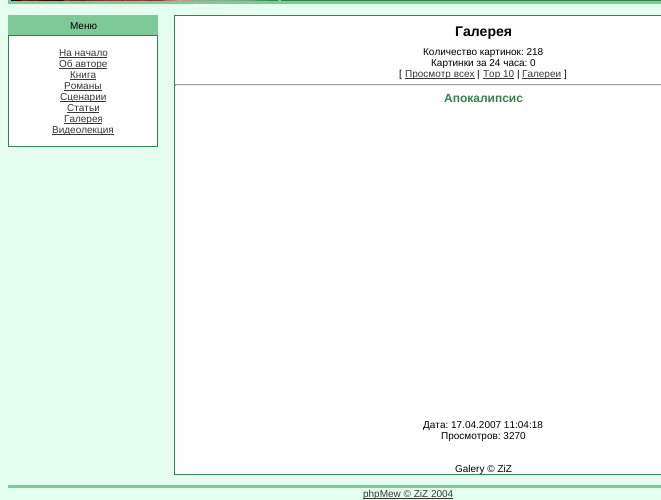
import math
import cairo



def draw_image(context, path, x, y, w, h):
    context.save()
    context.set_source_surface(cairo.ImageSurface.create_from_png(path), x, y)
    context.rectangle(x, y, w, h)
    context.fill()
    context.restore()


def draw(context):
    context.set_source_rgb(229 / 255, 1, 238 / 255)
    context.paint()
    context.set_source_rgb(126 / 255, 201 / 255, 151 / 255)
    context.rectangle(8, 0, 653, 4)
    context.fill()
    draw_image(context, "images/1.png", 11, 0, 267, 1)
    context.set_source_rgb(53 / 255, 129 / 255, 79 / 255)
    context.rectangle(281, 0, 380, 1)
    context.fill()
    context.set_source_rgb(126 / 255, 201 / 255, 151 / 255)
    context.rectangle(8, 15, 150, 20)
    context.fill()
    context.set_source_rgb(1, 1, 1)
    context.rectangle(8.5, 35.5, 149, 111)
    context.fill_preserve()
    context.set_source_rgb(53 / 255, 129 / 255, 79 / 255)
    context.set_line_width(1)
    context.stroke()
    context.set_source_rgb(54 / 255, 54 / 255, 54 / 255)
    context.rectangle(59, 57, 48, 1)
    context.fill()
    context.rectangle(59, 68, 48, 1)
    context.fill()
    context.rectangle(70, 79, 26, 1)
    context.fill()
    context.rectangle(64, 90, 38, 1)
    context.fill()
    context.rectangle(60, 101, 46, 1)
    context.fill()
    context.rectangle(67, 112, 32, 1)
    context.fill()
    context.rectangle(64, 123, 38, 1)
    context.fill()
    context.rectangle(52, 134, 62, 1)
    context.fill()
    context.set_source_rgb(1, 1, 1)
    context.rectangle(174.5, 15.5, 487, 459)
    context.fill_preserve()
    context.set_source_rgb(53 / 255, 129 / 255, 79 / 255)
    context.stroke()
    context.set_source_rgb(54 / 255, 54 / 255, 54 / 255)
    context.rectangle(405, 78, 70, 1)
    context.fill()
    context.rectangle(483, 78, 31, 1)
    context.fill()
    context.rectangle(522, 78, 39, 1)
    context.fill()
    context.set_source_rgb(159 / 255, 159 / 255, 159 / 255)
    context.rectangle(175, 84, 486, 1)
    context.fill()
    context.set_source_rgb(238 / 255, 238 / 255, 238 / 255)
    context.rectangle(175, 85, 486, 1)
    context.fill()
    context.set_source_rgb(159 / 255, 159 / 255, 159 / 255)
    context.rectangle(175, 84, 1, 2)
    context.fill()
    context.set_source_rgb(126 / 255, 201 / 255, 151 / 255)
    context.rectangle(8, 485, 653, 3)
    context.fill()
    context.set_source_rgb(54 / 255, 54 / 255, 54 / 255)
    context.rectangle(363, 498, 90, 1)
    context.fill()
    context.select_font_face("Liberation Sans")
    context.set_font_size(10)
    context.set_source_rgb(0, 0, 0)
    context.move_to(70, 29)
    context.show_text("Меню")
    context.set_source_rgb(54 / 255, 54 / 255, 54 / 255)
    context.move_to(59, 56)
    context.show_text("На начало")
    context.move_to(59, 67)
    context.show_text("Об авторе")
    context.move_to(70, 78)
    context.show_text("Книга")
    context.move_to(64, 89)
    context.show_text("Романы")
    context.move_to(60, 100)
    context.show_text("Сценарии")
    context.move_to(67, 111)
    context.show_text("Статьи")
    context.move_to(64, 122)
    context.show_text("Галерея")
    context.move_to(52, 133)
    context.show_text("Видеолекция")
    context.select_font_face("Liberation Sans", cairo.FontSlant.NORMAL, cairo.FontWeight.BOLD)
    context.set_font_size(14)
    context.set_source_rgb(0, 0, 0)
    context.move_to(455, 36)
    context.show_text("Галерея")
    context.select_font_face("Liberation Sans")
    context.set_font_size(10)
    context.move_to(423, 55)
    context.show_text("Количество картинок: 218")
    context.move_to(431, 66)
    context.show_text("Картинки за 24 часа: 0")
    context.move_to(399, 77)
    context.show_text("[")
    context.set_source_rgb(54 / 255, 54 / 255, 54 / 255)
    context.move_to(405, 77)
    context.show_text("Просмотр всех")
    context.set_source_rgb(0, 0, 0)
    context.move_to(477, 77)
    context.show_text("|")
    context.set_source_rgb(54 / 255, 54 / 255, 54 / 255)
    context.move_to(483, 77)
    context.show_text("Top 10")
    context.set_source_rgb(0, 0, 0)
    context.move_to(517, 77)
    context.show_text("|")
    context.set_source_rgb(54 / 255, 54 / 255, 54 / 255)
    context.move_to(522, 77)
    context.show_text("Галереи")
    context.set_source_rgb(0, 0, 0)
    context.move_to(564, 77)
    context.show_text("]")
    context.select_font_face("Liberation Sans", cairo.FontSlant.NORMAL, cairo.FontWeight.BOLD)
    context.set_font_size(12)
    context.set_source_rgb(53 / 255, 129 / 255, 79 / 255)
    context.move_to(444, 102)
    context.show_text("Апокалипсис")
    context.select_font_face("Liberation Sans")
    context.set_font_size(10)
    context.set_source_rgb(0, 0, 0)
    context.move_to(423, 428)
    context.show_text("Дата: 17.04.2007 11:04:18")
    context.move_to(441, 439)
    context.show_text("Просмотров: 3270")
    context.move_to(455, 472)
    context.show_text("Galery © ZiZ")
    context.set_source_rgb(54 / 255, 54 / 255, 54 / 255)
    context.move_to(363, 497)
    context.show_text("phpMew © ZiZ 2004")


surface = cairo.ImageSurface(cairo.Format.RGB24, 661, 500)
context = cairo.Context(surface)
options = cairo.FontOptions()
options.set_hint_metrics(cairo.HintMetrics.OFF)
options.set_hint_style(cairo.HintStyle.NONE)
context.set_font_options(options)
context.set_miter_limit(4)
draw(context)
surface.write_to_png("out.png")
